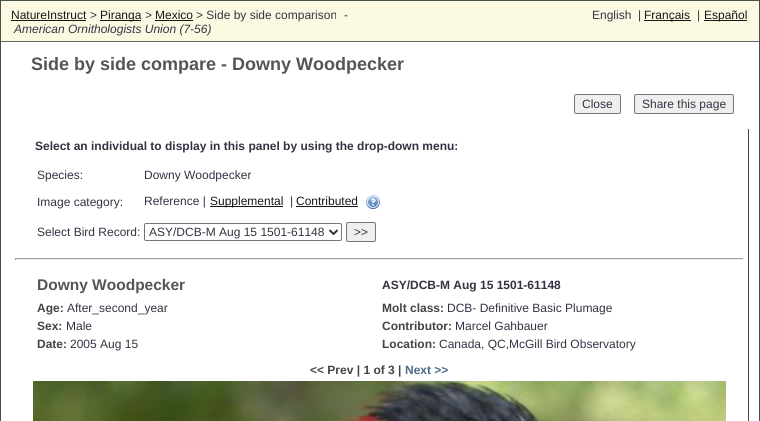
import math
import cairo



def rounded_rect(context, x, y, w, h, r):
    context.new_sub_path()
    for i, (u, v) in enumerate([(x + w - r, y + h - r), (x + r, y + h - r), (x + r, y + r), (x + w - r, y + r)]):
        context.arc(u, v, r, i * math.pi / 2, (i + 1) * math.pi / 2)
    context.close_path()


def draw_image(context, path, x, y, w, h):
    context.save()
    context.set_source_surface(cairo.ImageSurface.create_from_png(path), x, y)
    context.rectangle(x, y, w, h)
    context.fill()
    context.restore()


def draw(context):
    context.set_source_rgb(1, 1, 1)
    context.paint()
    context.rectangle(0.5, 0.5, 759, 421)
    context.set_source_rgb(70 / 255, 82 / 255, 72 / 255)
    context.set_line_width(1)
    context.stroke()
    context.set_source_rgb(251 / 255, 249 / 255, 226 / 255)
    context.rectangle(1, 1, 758, 40)
    context.fill()
    context.set_source_rgb(103 / 255, 103 / 255, 103 / 255)
    context.rectangle(1, 41, 758, 1)
    context.fill()
    context.set_source_rgb(23 / 255, 23 / 255, 23 / 255)
    context.rectangle(11, 20, 75, 1)
    context.fill()
    context.rectangle(100, 20, 41, 1)
    context.fill()
    context.rectangle(155, 20, 38, 1)
    context.fill()
    context.rectangle(644, 20, 47, 1)
    context.fill()
    context.rectangle(704, 20, 43, 1)
    context.fill()
    context.set_source_rgb(239 / 255, 239 / 255, 239 / 255)
    rounded_rect(context, 574.5, 94.5, 46, 19, 1.5)
    context.fill_preserve()
    context.set_source_rgb(118 / 255, 118 / 255, 118 / 255)
    context.stroke()
    context.set_source_rgb(239 / 255, 239 / 255, 239 / 255)
    rounded_rect(context, 634.5, 94.5, 99, 19, 1.5)
    context.fill_preserve()
    context.set_source_rgb(118 / 255, 118 / 255, 118 / 255)
    context.stroke()
    context.set_source_rgb(69 / 255, 69 / 255, 69 / 255)
    context.rectangle(748, 129, 1, 292)
    context.fill()
    context.set_source_rgb(23 / 255, 23 / 255, 23 / 255)
    context.rectangle(210, 206, 73, 1)
    context.fill()
    context.rectangle(296, 206, 62, 1)
    context.fill()
    draw_image(context, "images/1.png", 366, 195, 14, 14)
    rounded_rect(context, 144.5, 223.5, 197, 17, 1.5)
    context.set_source_rgb(118 / 255, 118 / 255, 118 / 255)
    context.stroke()
    context.new_path()
    context.move_to(329.5, 230)
    context.line_to(333.5, 234)
    context.line_to(337.5, 230)
    context.set_source_rgb(51 / 255, 51 / 255, 68 / 255)
    context.set_line_width(2)
    context.stroke()
    context.set_source_rgb(239 / 255, 239 / 255, 239 / 255)
    rounded_rect(context, 346.5, 222.5, 29, 19, 1.5)
    context.fill_preserve()
    context.set_source_rgb(118 / 255, 118 / 255, 118 / 255)
    context.set_line_width(1)
    context.stroke()
    context.set_source_rgb(159 / 255, 159 / 255, 159 / 255)
    context.rectangle(15, 258, 729, 1)
    context.fill()
    context.set_source_rgb(238 / 255, 238 / 255, 238 / 255)
    context.rectangle(743, 258, 1, 2)
    context.fill()
    context.rectangle(15, 259, 729, 1)
    context.fill()
    context.set_source_rgb(159 / 255, 159 / 255, 159 / 255)
    context.rectangle(15, 258, 1, 2)
    context.fill()
    draw_image(context, "images/2.png", 33, 381, 693, 40)
    context.select_font_face("Liberation Sans")
    context.set_font_size(12)
    context.set_source_rgb(23 / 255, 23 / 255, 23 / 255)
    context.move_to(11, 19)
    context.show_text("NatureInstruct")
    context.set_source_rgb(51 / 255, 51 / 255, 68 / 255)
    context.move_to(90, 19)
    context.show_text(">")
    context.set_source_rgb(23 / 255, 23 / 255, 23 / 255)
    context.move_to(100, 19)
    context.show_text("Piranga")
    context.set_source_rgb(51 / 255, 51 / 255, 68 / 255)
    context.move_to(145, 19)
    context.show_text(">")
    context.set_source_rgb(23 / 255, 23 / 255, 23 / 255)
    context.move_to(155, 19)
    context.show_text("Mexico")
    context.set_source_rgb(51 / 255, 51 / 255, 68 / 255)
    context.move_to(196, 19)
    context.show_text("> Side by side comparison")
    context.move_to(344, 19)
    context.show_text("-")
    context.select_font_face("Liberation Sans", cairo.FontSlant.ITALIC)
    context.move_to(14, 33)
    context.show_text("American Ornithologists Union (7-56)")
    context.select_font_face("Liberation Sans")
    context.move_to(592, 19)
    context.show_text("English  |")
    context.set_source_rgb(23 / 255, 23 / 255, 23 / 255)
    context.move_to(644, 19)
    context.show_text("Français")
    context.set_source_rgb(51 / 255, 51 / 255, 68 / 255)
    context.move_to(697, 19)
    context.show_text("|")
    context.set_source_rgb(23 / 255, 23 / 255, 23 / 255)
    context.move_to(704, 19)
    context.show_text("Español")
    context.select_font_face("Liberation Sans", cairo.FontSlant.NORMAL, cairo.FontWeight.BOLD)
    context.set_font_size(18)
    context.set_source_rgb(85 / 255, 85 / 255, 85 / 255)
    context.move_to(31, 70)
    context.show_text("Side by side compare - Downy Woodpecker")
    context.select_font_face("Liberation Sans")
    context.set_font_size(12)
    context.set_source_rgb(51 / 255, 51 / 255, 68 / 255)
    context.move_to(582, 108)
    context.show_text("Close")
    context.move_to(642, 108)
    context.show_text("Share this page")
    context.select_font_face("Liberation Sans", cairo.FontSlant.NORMAL, cairo.FontWeight.BOLD)
    context.move_to(35, 150)
    context.show_text("Select an individual to display in this panel by using the drop-down menu:")
    context.select_font_face("Liberation Sans")
    context.move_to(37, 179)
    context.show_text("Species:")
    context.move_to(144, 179)
    context.show_text("Downy Woodpecker")
    context.move_to(37, 206)
    context.show_text("Image category:")
    context.move_to(144, 205)
    context.show_text("Reference |")
    context.set_source_rgb(23 / 255, 23 / 255, 23 / 255)
    context.move_to(210, 205)
    context.show_text("Supplemental")
    context.set_source_rgb(51 / 255, 51 / 255, 68 / 255)
    context.move_to(290, 205)
    context.show_text("|")
    context.set_source_rgb(23 / 255, 23 / 255, 23 / 255)
    context.move_to(296, 205)
    context.show_text("Contributed")
    context.set_source_rgb(51 / 255, 51 / 255, 68 / 255)
    context.move_to(37, 236)
    context.show_text("Select Bird Record:")
    context.move_to(149, 236)
    context.show_text("ASY/DCB-M Aug 15 1501-61148")
    context.move_to(354, 236)
    context.show_text(">>")
    context.select_font_face("Liberation Sans", cairo.FontSlant.NORMAL, cairo.FontWeight.BOLD)
    context.set_font_size(15.5)
    context.set_source_rgb(85 / 255, 85 / 255, 85 / 255)
    context.move_to(37, 290)
    context.show_text("Downy Woodpecker")
    context.set_font_size(12)
    context.set_source_rgb(51 / 255, 51 / 255, 68 / 255)
    context.move_to(382, 289)
    context.show_text("ASY/DCB-M Aug 15 1501-61148")
    context.set_source_rgb(68 / 255, 68 / 255, 68 / 255)
    context.move_to(37, 312)
    context.show_text("Age:")
    context.select_font_face("Liberation Sans")
    context.set_source_rgb(51 / 255, 51 / 255, 68 / 255)
    context.move_to(67, 312)
    context.show_text("After_second_year")
    context.select_font_face("Liberation Sans", cairo.FontSlant.NORMAL, cairo.FontWeight.BOLD)
    context.set_source_rgb(68 / 255, 68 / 255, 68 / 255)
    context.move_to(382, 312)
    context.show_text("Molt class:")
    context.select_font_face("Liberation Sans")
    context.set_source_rgb(51 / 255, 51 / 255, 68 / 255)
    context.move_to(447, 312)
    context.show_text("DCB- Definitive Basic Plumage")
    context.select_font_face("Liberation Sans", cairo.FontSlant.NORMAL, cairo.FontWeight.BOLD)
    context.set_source_rgb(68 / 255, 68 / 255, 68 / 255)
    context.move_to(37, 330)
    context.show_text("Sex:")
    context.select_font_face("Liberation Sans")
    context.set_source_rgb(51 / 255, 51 / 255, 68 / 255)
    context.move_to(66, 330)
    context.show_text("Male")
    context.select_font_face("Liberation Sans", cairo.FontSlant.NORMAL, cairo.FontWeight.BOLD)
    context.set_source_rgb(68 / 255, 68 / 255, 68 / 255)
    context.move_to(382, 330)
    context.show_text("Contributor:")
    context.select_font_face("Liberation Sans")
    context.set_source_rgb(51 / 255, 51 / 255, 68 / 255)
    context.move_to(455, 330)
    context.show_text("Marcel Gahbauer")
    context.select_font_face("Liberation Sans", cairo.FontSlant.NORMAL, cairo.FontWeight.BOLD)
    context.set_source_rgb(68 / 255, 68 / 255, 68 / 255)
    context.move_to(37, 348)
    context.show_text("Date:")
    context.select_font_face("Liberation Sans")
    context.set_source_rgb(51 / 255, 51 / 255, 68 / 255)
    context.move_to(70, 348)
    context.show_text("2005 Aug 15")
    context.select_font_face("Liberation Sans", cairo.FontSlant.NORMAL, cairo.FontWeight.BOLD)
    context.set_source_rgb(68 / 255, 68 / 255, 68 / 255)
    context.move_to(382, 348)
    context.show_text("Location:")
    context.select_font_face("Liberation Sans")
    context.set_source_rgb(51 / 255, 51 / 255, 68 / 255)
    context.move_to(439, 348)
    context.show_text("Canada, QC,McGill Bird Observatory")
    context.select_font_face("Liberation Sans", cairo.FontSlant.NORMAL, cairo.FontWeight.BOLD)
    context.set_source_rgb(68 / 255, 68 / 255, 68 / 255)
    context.move_to(310, 374)
    context.show_text("<< Prev | 1 of 3 |")
    context.set_source_rgb(75 / 255, 106 / 255, 135 / 255)
    context.move_to(405, 374)
    context.show_text("Next >>")


surface = cairo.ImageSurface(cairo.Format.RGB24, 760, 421)
context = cairo.Context(surface)
options = cairo.FontOptions()
options.set_hint_metrics(cairo.HintMetrics.OFF)
options.set_hint_style(cairo.HintStyle.NONE)
context.set_font_options(options)
context.set_miter_limit(4)
draw(context)
surface.write_to_png("out.png")
